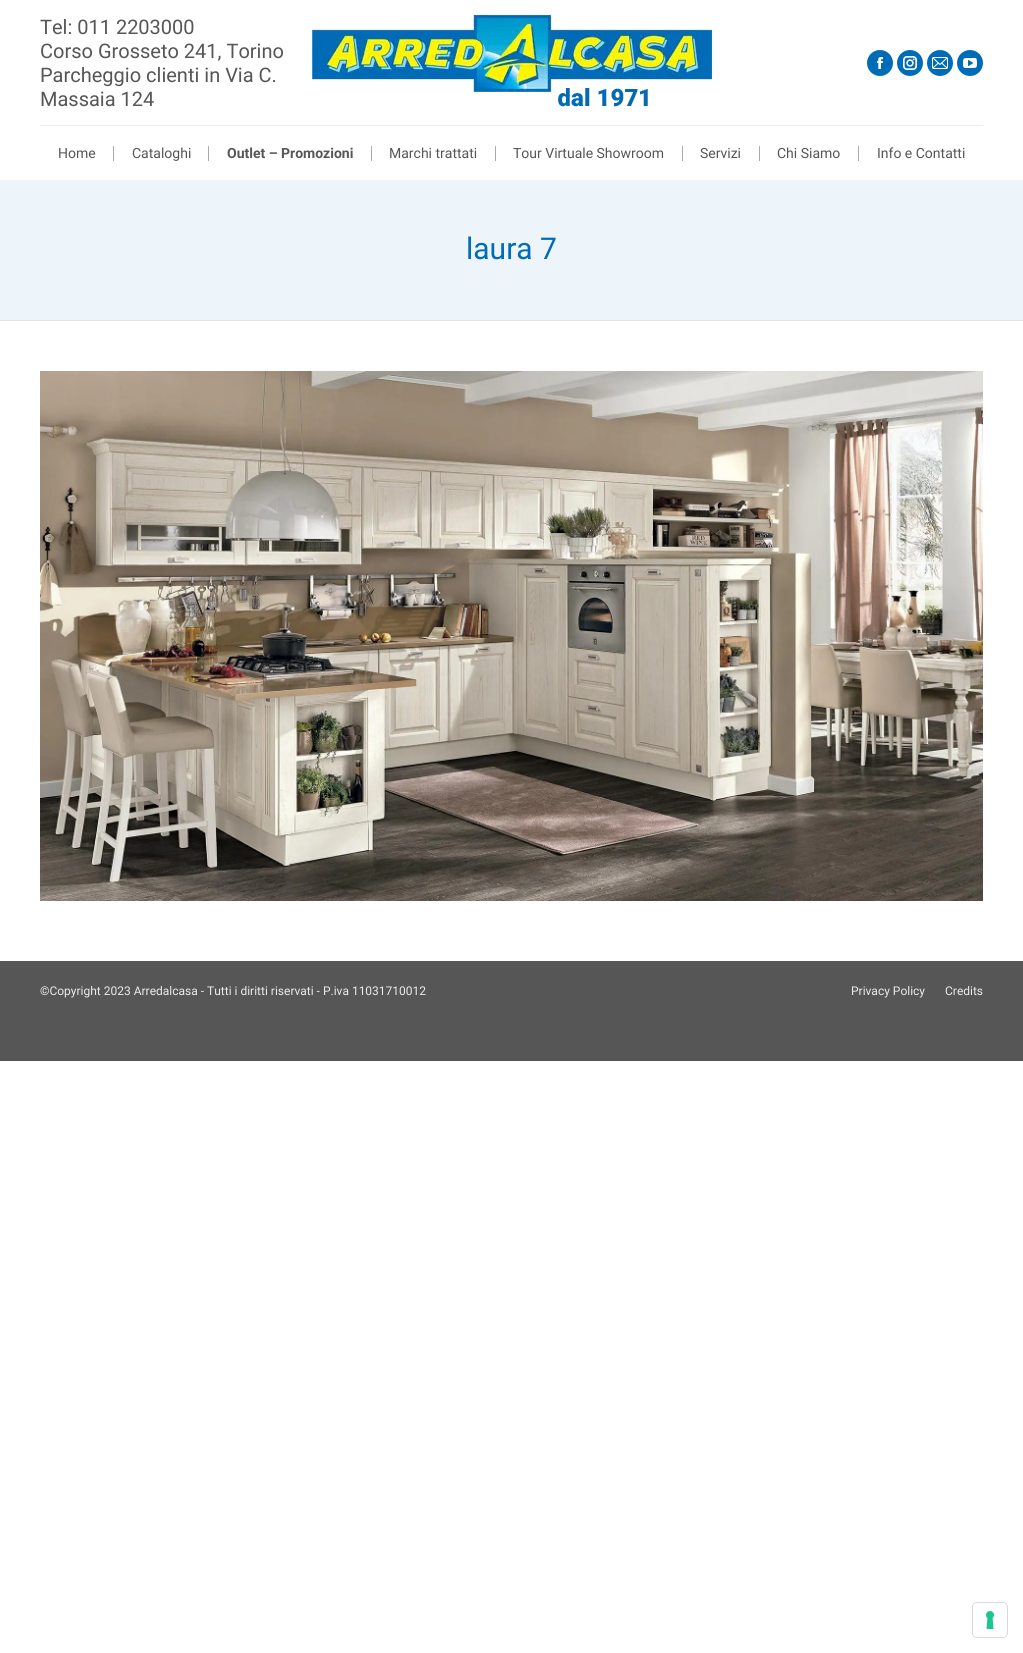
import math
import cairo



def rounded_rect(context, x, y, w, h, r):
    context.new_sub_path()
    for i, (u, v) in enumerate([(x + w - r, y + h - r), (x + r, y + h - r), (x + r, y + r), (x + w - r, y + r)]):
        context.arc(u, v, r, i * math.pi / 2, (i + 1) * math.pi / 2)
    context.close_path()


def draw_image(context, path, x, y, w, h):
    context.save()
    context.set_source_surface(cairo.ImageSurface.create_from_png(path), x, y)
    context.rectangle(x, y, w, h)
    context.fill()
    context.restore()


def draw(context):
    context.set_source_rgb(1, 1, 1)
    context.paint()
    draw_image(context, "images/1.png", 312, 15, 400, 92)
    context.set_source_rgb(0, 107 / 255, 182 / 255)
    context.arc(880, 63, 13, 0, 2 * math.pi)
    context.fill()
    draw_image(context, "images/2.png", 877, 57, 6, 12)
    context.arc(910, 63, 13, 0, 2 * math.pi)
    context.fill()
    draw_image(context, "images/3.png", 903, 56, 14, 14)
    context.arc(940, 63, 13, 0, 2 * math.pi)
    context.fill()
    draw_image(context, "images/4.png", 932, 57, 16, 12)
    context.arc(970, 63, 13, 0, 2 * math.pi)
    context.fill()
    draw_image(context, "images/5.png", 963, 58, 14, 10)
    context.set_source_rgb(238 / 255, 238 / 255, 238 / 255)
    context.rectangle(40, 125, 943, 1)
    context.fill()
    context.set_source_rgb(171 / 255, 171 / 255, 171 / 255)
    context.rectangle(113, 146, 1, 15)
    context.fill()
    context.rectangle(208, 146, 1, 15)
    context.fill()
    context.rectangle(371, 146, 1, 15)
    context.fill()
    context.rectangle(495, 146, 1, 15)
    context.fill()
    context.rectangle(682, 146, 1, 15)
    context.fill()
    context.rectangle(759, 146, 1, 15)
    context.fill()
    context.rectangle(858, 146, 1, 15)
    context.fill()
    context.set_source_rgb(237 / 255, 245 / 255, 250 / 255)
    context.rectangle(0, 180, 1023, 140)
    context.fill()
    context.set_source_rgb(227 / 255, 227 / 255, 227 / 255)
    context.rectangle(0, 320, 1023, 1)
    context.fill()
    draw_image(context, "images/6.png", 40, 371, 943, 530)
    context.set_source_rgb(86 / 255, 86 / 255, 86 / 255)
    context.rectangle(0, 961, 1023, 100)
    context.fill()
    rounded_rect(context, 972.5, 1602.5, 35, 35, 4.5)
    context.set_source_rgb(217 / 255, 217 / 255, 217 / 255)
    context.set_line_width(1)
    context.stroke()
    context.set_source_rgb(1, 1, 1)
    rounded_rect(context, 973, 1603, 34, 34, 4)
    context.fill()
    draw_image(context, "images/7.png", 986, 1611, 8, 18)
    context.select_font_face("Roboto")
    context.set_font_size(20)
    context.set_source_rgb(86 / 255, 86 / 255, 86 / 255)
    context.move_to(40, 34)
    context.show_text("Tel: 011 2203000")
    context.move_to(40, 58)
    context.show_text("Corso Grosseto 241, Torino")
    context.move_to(40, 82)
    context.show_text("Parcheggio clienti in Via C.")
    context.move_to(40, 106)
    context.show_text("Massaia 124")
    context.set_font_size(14)
    context.move_to(58, 158)
    context.show_text("Home")
    context.move_to(132, 158)
    context.show_text("Cataloghi")
    context.select_font_face("Roboto", cairo.FontSlant.NORMAL, cairo.FontWeight.BOLD)
    context.move_to(227, 158)
    context.show_text("Outlet – Promozioni")
    context.select_font_face("Roboto")
    context.move_to(389, 158)
    context.show_text("Marchi trattati")
    context.move_to(513, 158)
    context.show_text("Tour Virtuale Showroom")
    context.move_to(700, 158)
    context.show_text("Servizi")
    context.move_to(777, 158)
    context.show_text("Chi Siamo")
    context.move_to(877, 158)
    context.show_text("Info e Contatti")
    context.set_font_size(30)
    context.set_source_rgb(0, 107 / 255, 182 / 255)
    context.move_to(466, 259)
    context.show_text("laura 7")
    context.set_font_size(12)
    context.set_source_rgb(234 / 255, 234 / 255, 234 / 255)
    context.move_to(40, 995)
    context.show_text("©Copyright 2023 Arredalcasa - Tutti i diritti riservati - P.iva 11031710012")
    context.move_to(851, 995)
    context.show_text("Privacy Policy")
    context.move_to(945, 995)
    context.show_text("Credits")


surface = cairo.ImageSurface(cairo.Format.RGB24, 1023, 1653)
context = cairo.Context(surface)
options = cairo.FontOptions()
options.set_hint_metrics(cairo.HintMetrics.OFF)
options.set_hint_style(cairo.HintStyle.NONE)
context.set_font_options(options)
context.set_miter_limit(4)
draw(context)
surface.write_to_png("out.png")
